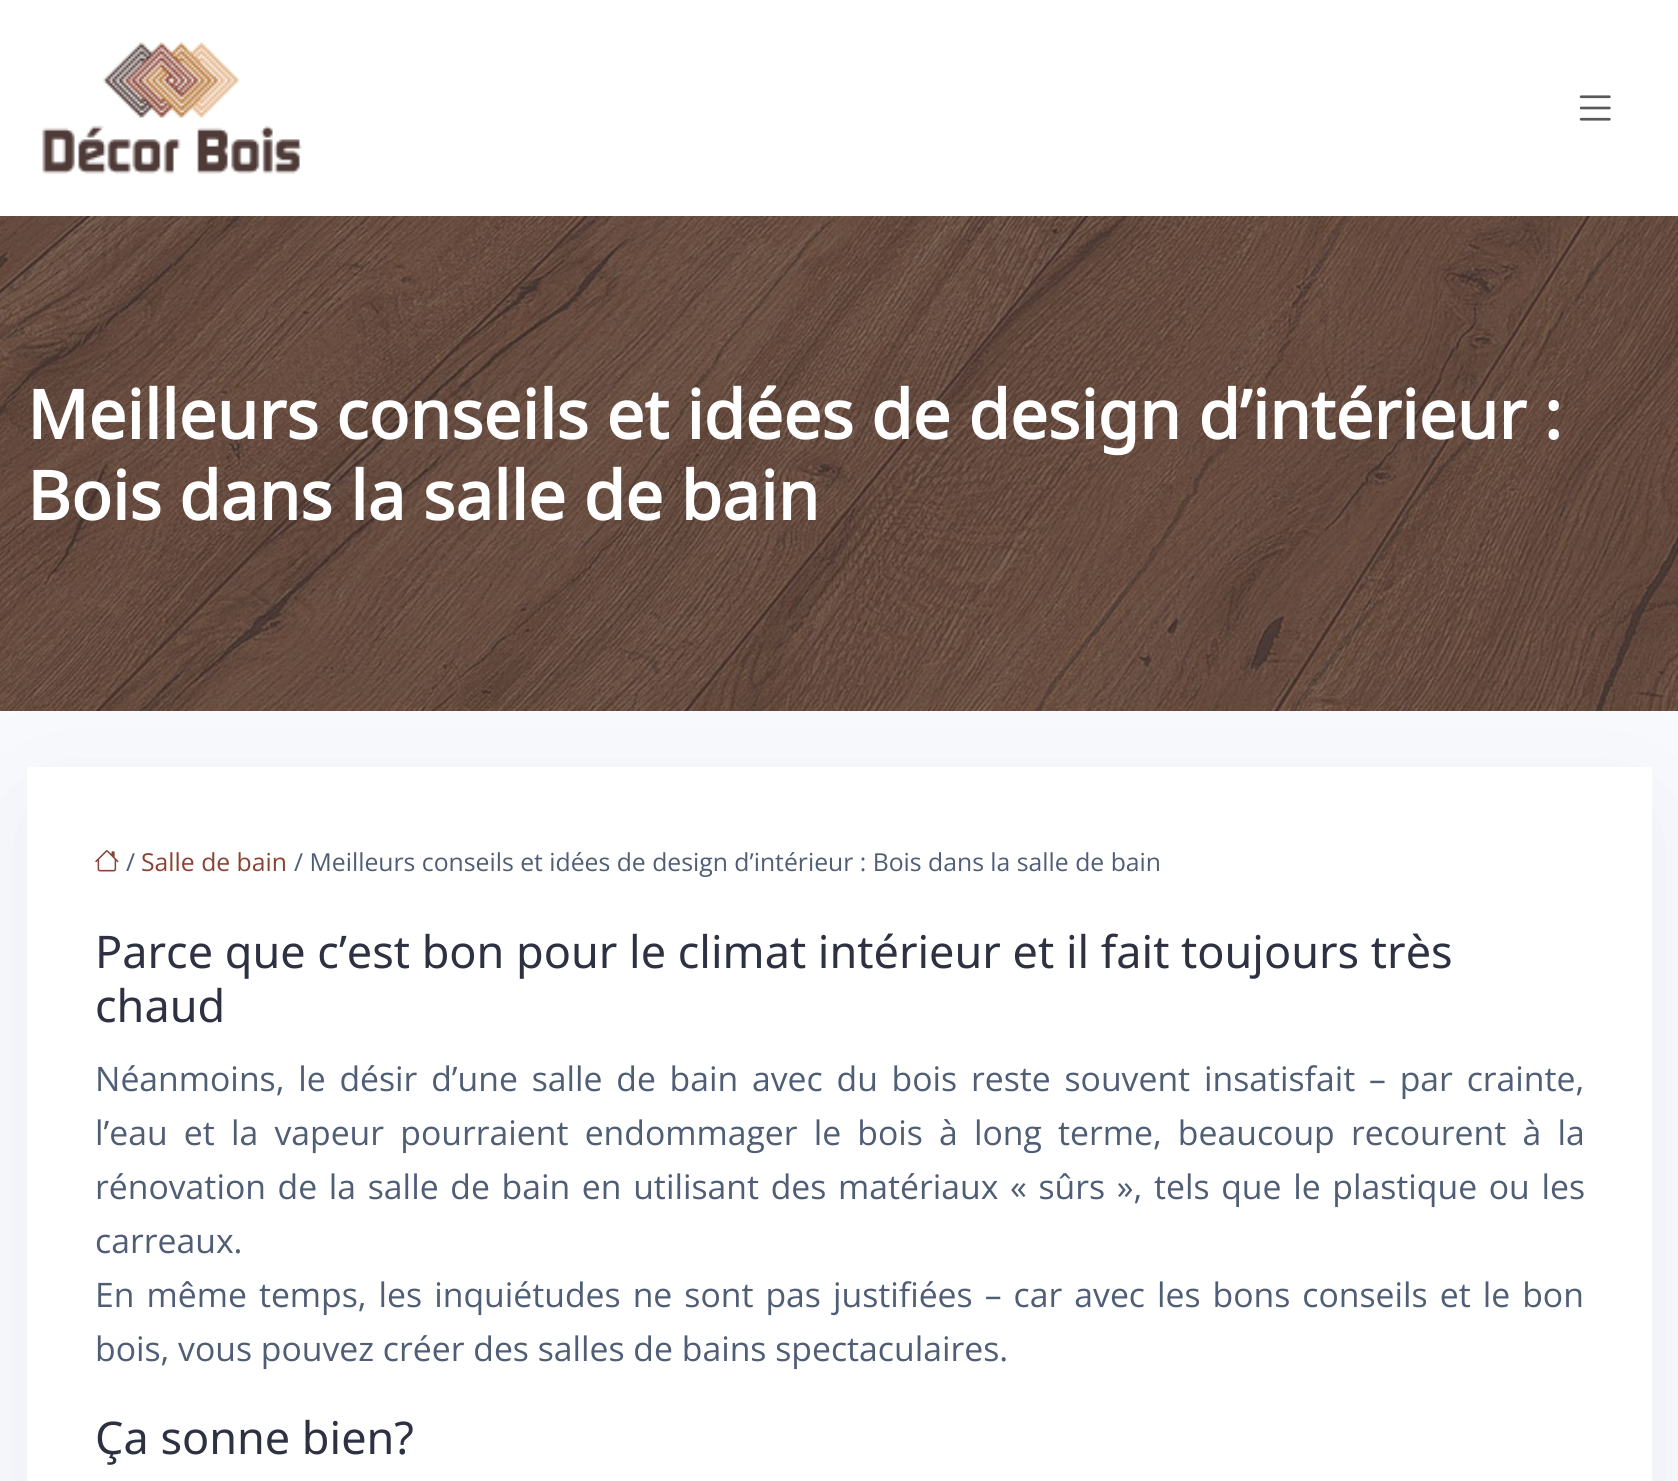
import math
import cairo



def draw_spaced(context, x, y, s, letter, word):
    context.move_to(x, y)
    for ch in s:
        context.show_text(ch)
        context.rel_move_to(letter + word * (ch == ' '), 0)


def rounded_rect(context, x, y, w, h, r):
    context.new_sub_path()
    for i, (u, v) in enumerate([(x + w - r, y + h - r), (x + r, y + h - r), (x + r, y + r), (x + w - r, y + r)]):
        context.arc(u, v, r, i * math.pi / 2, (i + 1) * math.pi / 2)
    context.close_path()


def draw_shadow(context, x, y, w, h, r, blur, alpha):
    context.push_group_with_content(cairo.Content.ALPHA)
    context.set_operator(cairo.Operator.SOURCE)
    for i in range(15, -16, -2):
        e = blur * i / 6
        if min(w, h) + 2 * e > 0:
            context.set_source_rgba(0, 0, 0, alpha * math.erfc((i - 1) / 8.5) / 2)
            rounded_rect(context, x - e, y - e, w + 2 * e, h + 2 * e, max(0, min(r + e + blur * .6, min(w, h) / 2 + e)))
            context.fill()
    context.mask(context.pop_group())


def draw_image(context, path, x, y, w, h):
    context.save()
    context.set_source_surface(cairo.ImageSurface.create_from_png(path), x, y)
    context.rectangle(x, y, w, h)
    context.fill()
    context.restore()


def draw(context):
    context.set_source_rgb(250 / 255, 251 / 255, 1)
    context.paint()
    context.set_source_rgb(1, 1, 1)
    context.rectangle(0, 0, 1678, 216)
    context.fill()
    draw_image(context, "images/1.png", 42, 42, 260, 132)
    draw_image(context, "images/2.png", 1579, 95, 32, 26)
    context.set_source_rgb(0, 0, 0)
    draw_shadow(context, 27, 801, 1625, 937, 0, 85.5, 0.06)
    draw_image(context, "images/3.png", 0, 216, 1678, 495)
    context.set_source_rgb(1, 1, 1)
    context.rectangle(27, 767, 1625, 714)
    context.fill()
    draw_image(context, "images/4.png", 95, 850, 24, 22)
    context.select_font_face("Noto Sans", cairo.FontSlant.NORMAL, cairo.FontWeight.BOLD)
    context.set_font_size(67.5)
    context.move_to(27, 439)
    context.show_text("Meilleurs conseils et idées de design d’intérieur :")
    context.move_to(27, 520)
    context.show_text("Bois dans la salle de bain")
    context.select_font_face("Open Sans")
    context.set_font_size(24.75)
    context.set_source_rgb(79 / 255, 93 / 255, 117 / 255)
    context.move_to(126, 871)
    context.show_text("/")
    context.set_source_rgb(137 / 255, 66 / 255, 51 / 255)
    context.move_to(141, 871)
    context.show_text("Salle de bain")
    context.set_source_rgb(79 / 255, 93 / 255, 117 / 255)
    context.move_to(294, 871)
    context.show_text("/ Meilleurs conseils et idées de design d’intérieur : Bois dans la salle de bain")
    context.select_font_face("Noto Sans")
    context.set_font_size(45)
    context.set_source_rgb(45 / 255, 49 / 255, 66 / 255)
    context.move_to(95, 968)
    context.show_text("Parce que c’est bon pour le climat intérieur et il fait toujours très")
    context.move_to(95, 1022)
    context.show_text("chaud")
    context.select_font_face("Open Sans")
    context.set_font_size(33.75)
    context.set_source_rgb(79 / 255, 93 / 255, 117 / 255)
    draw_spaced(context, 95, 1091, "Néanmoins, le désir d’une salle de bain avec du bois reste souvent insatisfait – par crainte,", 0, 5)
    draw_spaced(context, 95, 1145, "l’eau et la vapeur pourraient endommager le bois à long terme, beaucoup recourent à la", 0, 7.4)
    draw_spaced(context, 95, 1199, "rénovation de la salle de bain en utilisant des matériaux « sûrs », tels que le plastique ou les", 0, 2.9)
    context.move_to(95, 1253)
    context.show_text("carreaux.")
    draw_spaced(context, 95, 1307, "En même temps, les inquiétudes ne sont pas justifiées – car avec les bons conseils et le bon", 0, 3.25)
    context.move_to(95, 1361)
    context.show_text("bois, vous pouvez créer des salles de bains spectaculaires.")
    context.select_font_face("Noto Sans")
    context.set_font_size(45)
    context.set_source_rgb(45 / 255, 49 / 255, 66 / 255)
    context.move_to(95, 1454)
    context.show_text("Ça sonne bien?")


surface = cairo.ImageSurface(cairo.Format.RGB24, 1678, 1481)
context = cairo.Context(surface)
options = cairo.FontOptions()
options.set_hint_metrics(cairo.HintMetrics.OFF)
options.set_hint_style(cairo.HintStyle.NONE)
context.set_font_options(options)
context.set_miter_limit(4)
draw(context)
surface.write_to_png("out.png")
